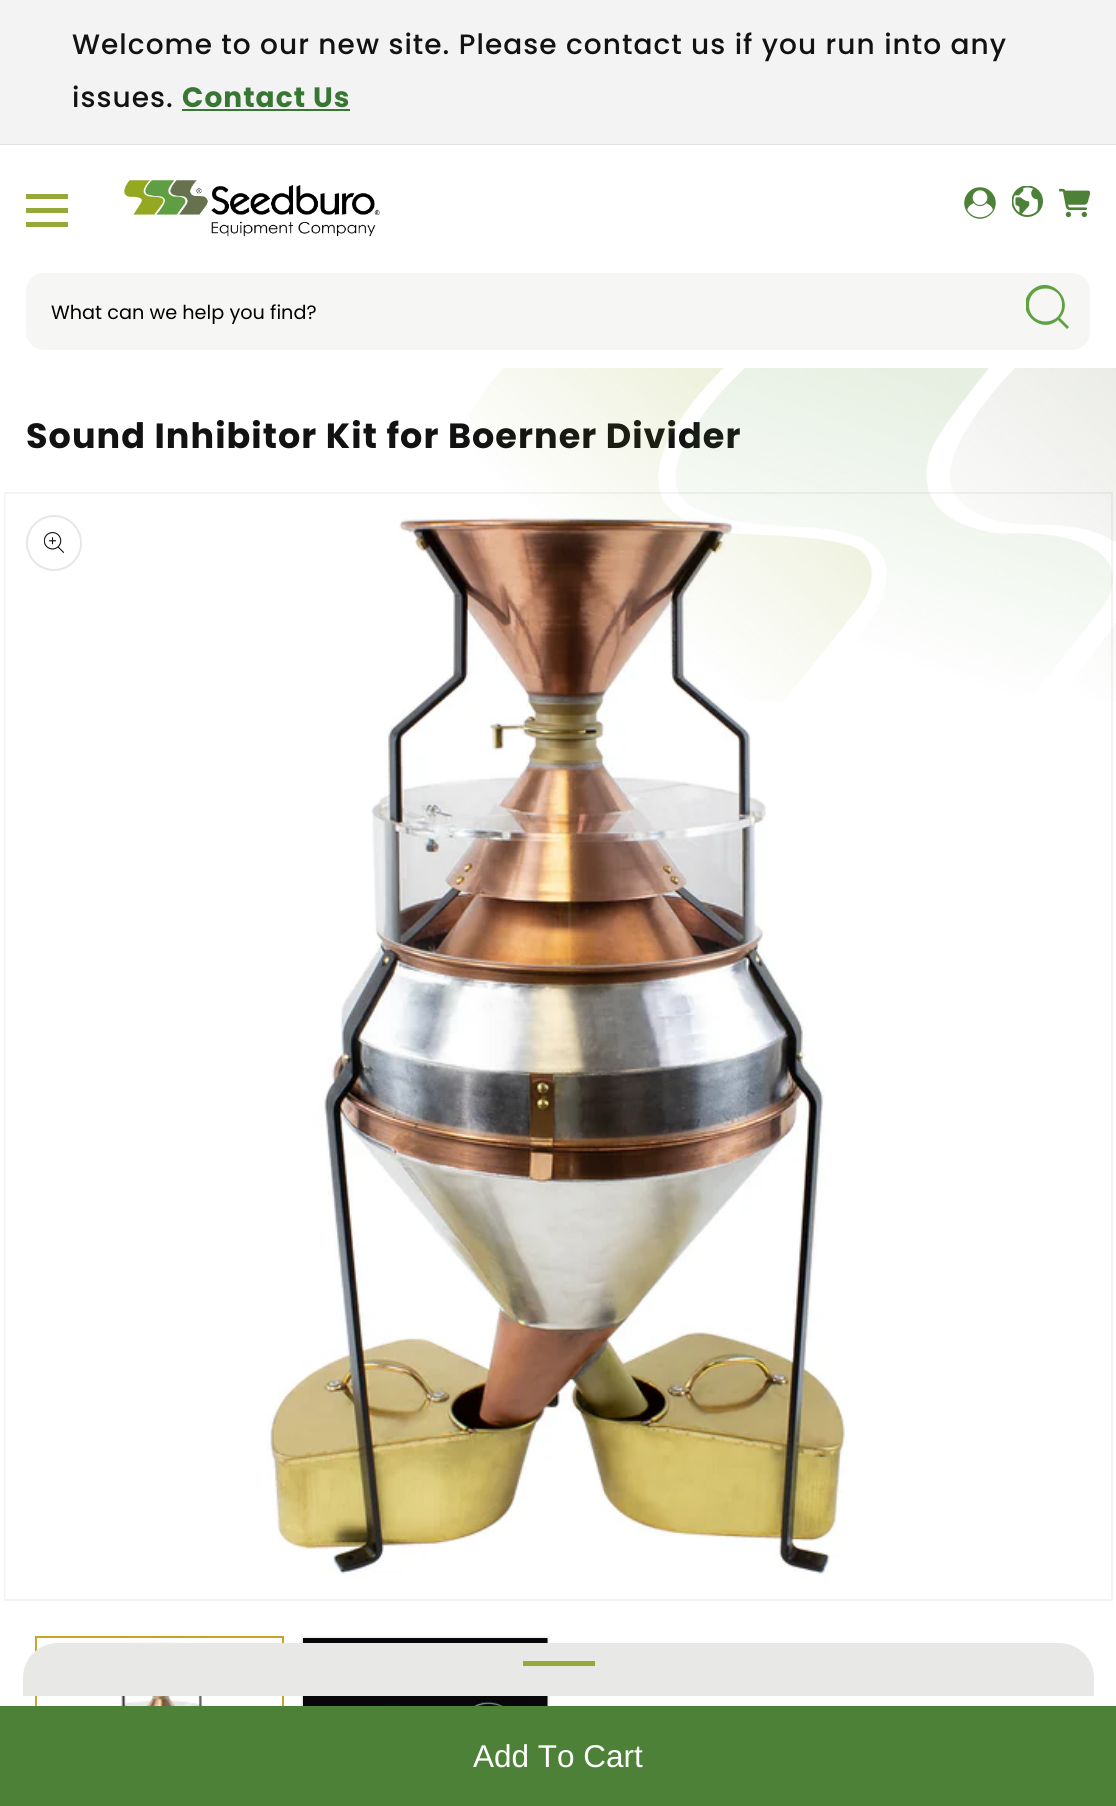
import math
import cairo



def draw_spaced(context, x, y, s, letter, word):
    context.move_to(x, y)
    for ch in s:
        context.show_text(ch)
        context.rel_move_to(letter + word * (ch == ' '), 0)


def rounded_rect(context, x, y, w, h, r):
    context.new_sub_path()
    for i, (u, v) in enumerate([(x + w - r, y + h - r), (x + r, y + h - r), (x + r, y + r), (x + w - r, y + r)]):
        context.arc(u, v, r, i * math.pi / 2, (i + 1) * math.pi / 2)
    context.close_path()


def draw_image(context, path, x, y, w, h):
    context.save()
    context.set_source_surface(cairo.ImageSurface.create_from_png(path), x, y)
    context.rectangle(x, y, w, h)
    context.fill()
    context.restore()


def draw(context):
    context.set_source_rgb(1, 1, 1)
    context.paint()
    context.set_source_rgb(243 / 255, 243 / 255, 243 / 255)
    context.rectangle(0, 0, 1116, 144)
    context.fill()
    context.set_source_rgb(225 / 255, 225 / 255, 225 / 255)
    context.rectangle(0, 144, 1116, 1)
    context.fill()
    context.set_source_rgb(55 / 255, 118 / 255, 51 / 255)
    context.rectangle(182, 109, 168, 2)
    context.fill()
    context.set_source_rgb(151 / 255, 168 / 255, 58 / 255)
    context.rectangle(26, 208, 42, 5)
    context.fill()
    context.rectangle(26, 194, 42, 5)
    context.fill()
    context.rectangle(26, 222, 42, 5)
    context.fill()
    draw_image(context, "images/1.png", 124, 180, 256, 57)
    draw_image(context, "images/2.png", 964, 187, 32, 32)
    draw_image(context, "images/3.png", 1012, 186, 31, 31)
    draw_image(context, "images/4.png", 1059, 188, 31, 30)
    context.set_source_rgb(246 / 255, 247 / 255, 244 / 255)
    rounded_rect(context, 26, 273, 1064, 77, 18)
    context.fill()
    context.save()
    context.rectangle(1026, 285, 43, 44)
    context.clip()
    context.set_source_rgb(96 / 255, 161 / 255, 67 / 255)
    context.new_path()
    context.move_to(1067, 329)
    context.line_to(1058, 320)
    context.curve_to(1040, 336, 1013, 309, 1031, 291)
    context.curve_to(1049, 273, 1076, 299, 1060, 318)
    context.line_to(1069, 327)
    context.close_path()
    context.move_to(1062, 305)
    context.curve_to(1062, 283, 1029, 283, 1029, 305)
    context.curve_to(1029, 327, 1062, 327, 1062, 305)
    context.close_path()
    context.fill()
    context.restore()
    context.rectangle(5, 493, 1107, 1107)
    context.set_source_rgb(243 / 255, 243 / 255, 243 / 255)
    context.stroke()
    draw_image(context, "images/5.png", 5, 494, 843, 1105)
    context.arc(54, 543, 27, 0, 2 * math.pi)
    context.set_source_rgb(231 / 255, 231 / 255, 231 / 255)
    context.stroke()
    draw_image(context, "images/6.png", 44, 532, 20, 21)
    context.rectangle(36, 1637, 247, 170)
    context.set_source_rgb(199 / 255, 163 / 255, 40 / 255)
    context.stroke()
    draw_image(context, "images/7.png", 36, 1638, 185, 68)
    context.rectangle(302, 1637, 247, 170)
    context.set_source_rgb(243 / 255, 243 / 255, 243 / 255)
    context.stroke()
    draw_image(context, "images/8.png", 302, 1638, 246, 68)
    context.set_source_rgb(232 / 255, 233 / 255, 230 / 255)
    context.new_path()
    context.move_to(58, 1643)
    context.line_to(1059, 1643)
    context.curve_to(1078.5, 1643, 1094, 1658.5, 1094, 1678)
    context.line_to(1094, 1696)
    context.line_to(23, 1696)
    context.line_to(23, 1678)
    context.curve_to(23, 1658.5, 38.5, 1643, 58, 1643)
    context.close_path()
    context.fill()
    context.set_source_rgb(151 / 255, 168 / 255, 58 / 255)
    context.rectangle(523, 1661, 72, 5)
    context.fill()
    context.set_source_rgb(77 / 255, 129 / 255, 55 / 255)
    context.rectangle(0, 1706, 1116, 100)
    context.fill()
    context.select_font_face("Poppins Medium")
    context.set_font_size(28)
    context.set_source_rgb(18 / 255, 18 / 255, 18 / 255)
    draw_spaced(context, 72, 54, "Welcome to our new site. Please contact us if you run into any", 1.05, 0)
    draw_spaced(context, 72, 107, "issues.", 1.05, 0)
    context.select_font_face("Poppins", cairo.FontSlant.NORMAL, cairo.FontWeight.BOLD)
    context.set_source_rgb(55 / 255, 118 / 255, 51 / 255)
    draw_spaced(context, 182, 107, "Contact Us", 1.05, 0)
    context.select_font_face("Poppins")
    context.set_font_size(19.25)
    context.set_source_rgb(0, 0, 0)
    context.move_to(51, 319)
    context.show_text("What can we help you find?")
    context.select_font_face("Poppins", cairo.FontSlant.NORMAL, cairo.FontWeight.BOLD)
    context.set_font_size(35)
    context.set_source_rgb(18 / 255, 18 / 255, 18 / 255)
    draw_spaced(context, 26, 448, "Sound Inhibitor Kit for Boerner Divider", 1.05, 0)
    context.select_font_face("Liberation Sans")
    context.set_font_size(31.5)
    context.set_source_rgb(1, 1, 1)
    context.move_to(473, 1767)
    context.show_text("Add To Cart")
    draw_image(context, "images/9.png", 470, 368, 646, 333)


surface = cairo.ImageSurface(cairo.Format.RGB24, 1116, 1806)
context = cairo.Context(surface)
options = cairo.FontOptions()
options.set_hint_metrics(cairo.HintMetrics.OFF)
options.set_hint_style(cairo.HintStyle.NONE)
context.set_font_options(options)
context.set_miter_limit(4)
draw(context)
surface.write_to_png("out.png")
